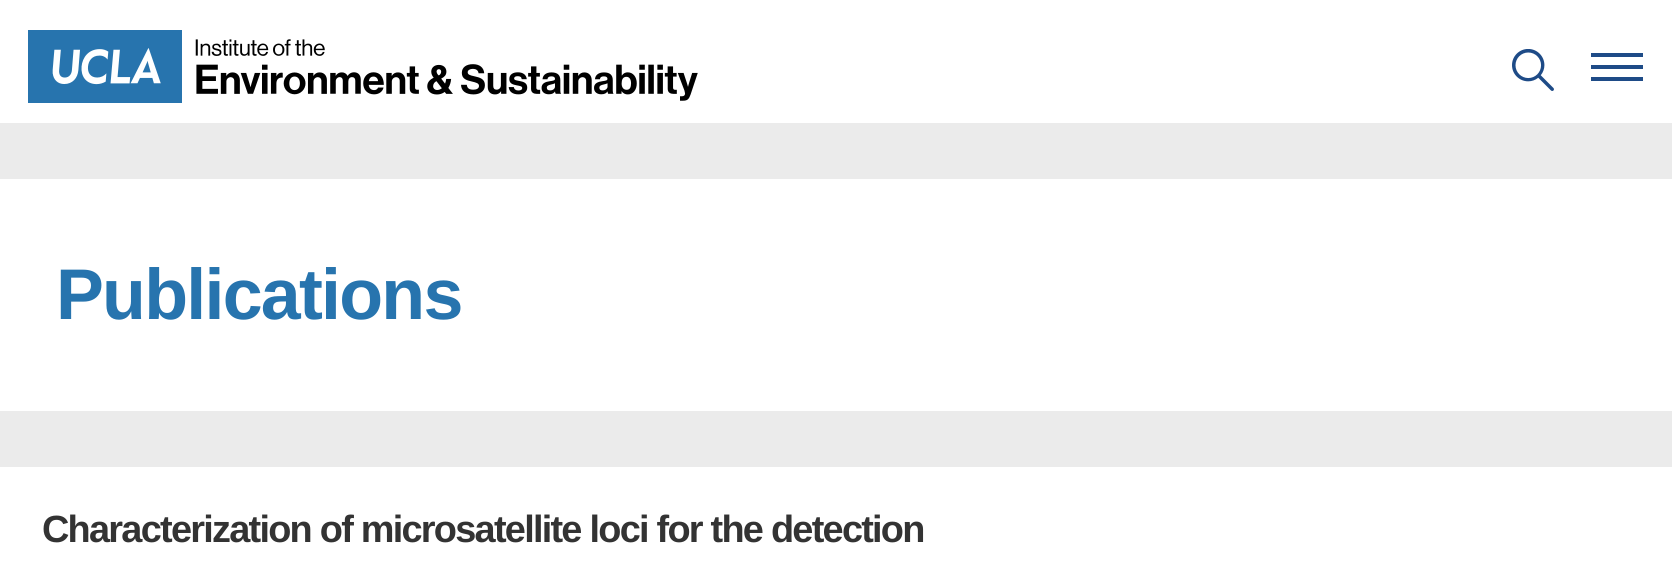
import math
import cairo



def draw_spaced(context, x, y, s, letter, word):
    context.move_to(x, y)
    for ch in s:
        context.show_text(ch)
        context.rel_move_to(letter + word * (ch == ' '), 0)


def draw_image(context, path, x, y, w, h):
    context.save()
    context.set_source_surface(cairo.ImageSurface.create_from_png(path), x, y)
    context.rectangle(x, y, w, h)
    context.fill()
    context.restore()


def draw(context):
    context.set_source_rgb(235 / 255, 235 / 255, 235 / 255)
    context.paint()
    context.set_source_rgb(1, 1, 1)
    context.rectangle(0, 0, 1672, 123)
    context.fill()
    draw_image(context, "images/1.png", 28, 30, 670, 73)
    draw_image(context, "images/2.png", 1512, 49, 42, 42)
    context.set_source_rgb(30 / 255, 75 / 255, 135 / 255)
    context.rectangle(1591, 65, 52, 4)
    context.fill()
    context.rectangle(1591, 53, 52, 4)
    context.fill()
    context.rectangle(1591, 77, 52, 4)
    context.fill()
    context.set_source_rgb(1, 1, 1)
    context.rectangle(0, 179, 1672, 232)
    context.fill()
    context.rectangle(0, 467, 1672, 103)
    context.fill()
    context.select_font_face("Liberation Sans", cairo.FontSlant.NORMAL, cairo.FontWeight.BOLD)
    context.set_font_size(71.75)
    context.set_source_rgb(39 / 255, 116 / 255, 174 / 255)
    draw_spaced(context, 56, 319, "Publications", -1.75, 0)
    context.set_font_size(37.9)
    context.set_source_rgb(51 / 255, 51 / 255, 51 / 255)
    draw_spaced(context, 42, 542, "Characterization of microsatellite loci for the detection", -1.75, 0)


surface = cairo.ImageSurface(cairo.Format.RGB24, 1672, 570)
context = cairo.Context(surface)
options = cairo.FontOptions()
options.set_hint_metrics(cairo.HintMetrics.OFF)
options.set_hint_style(cairo.HintStyle.NONE)
context.set_font_options(options)
context.set_miter_limit(4)
draw(context)
surface.write_to_png("out.png")
